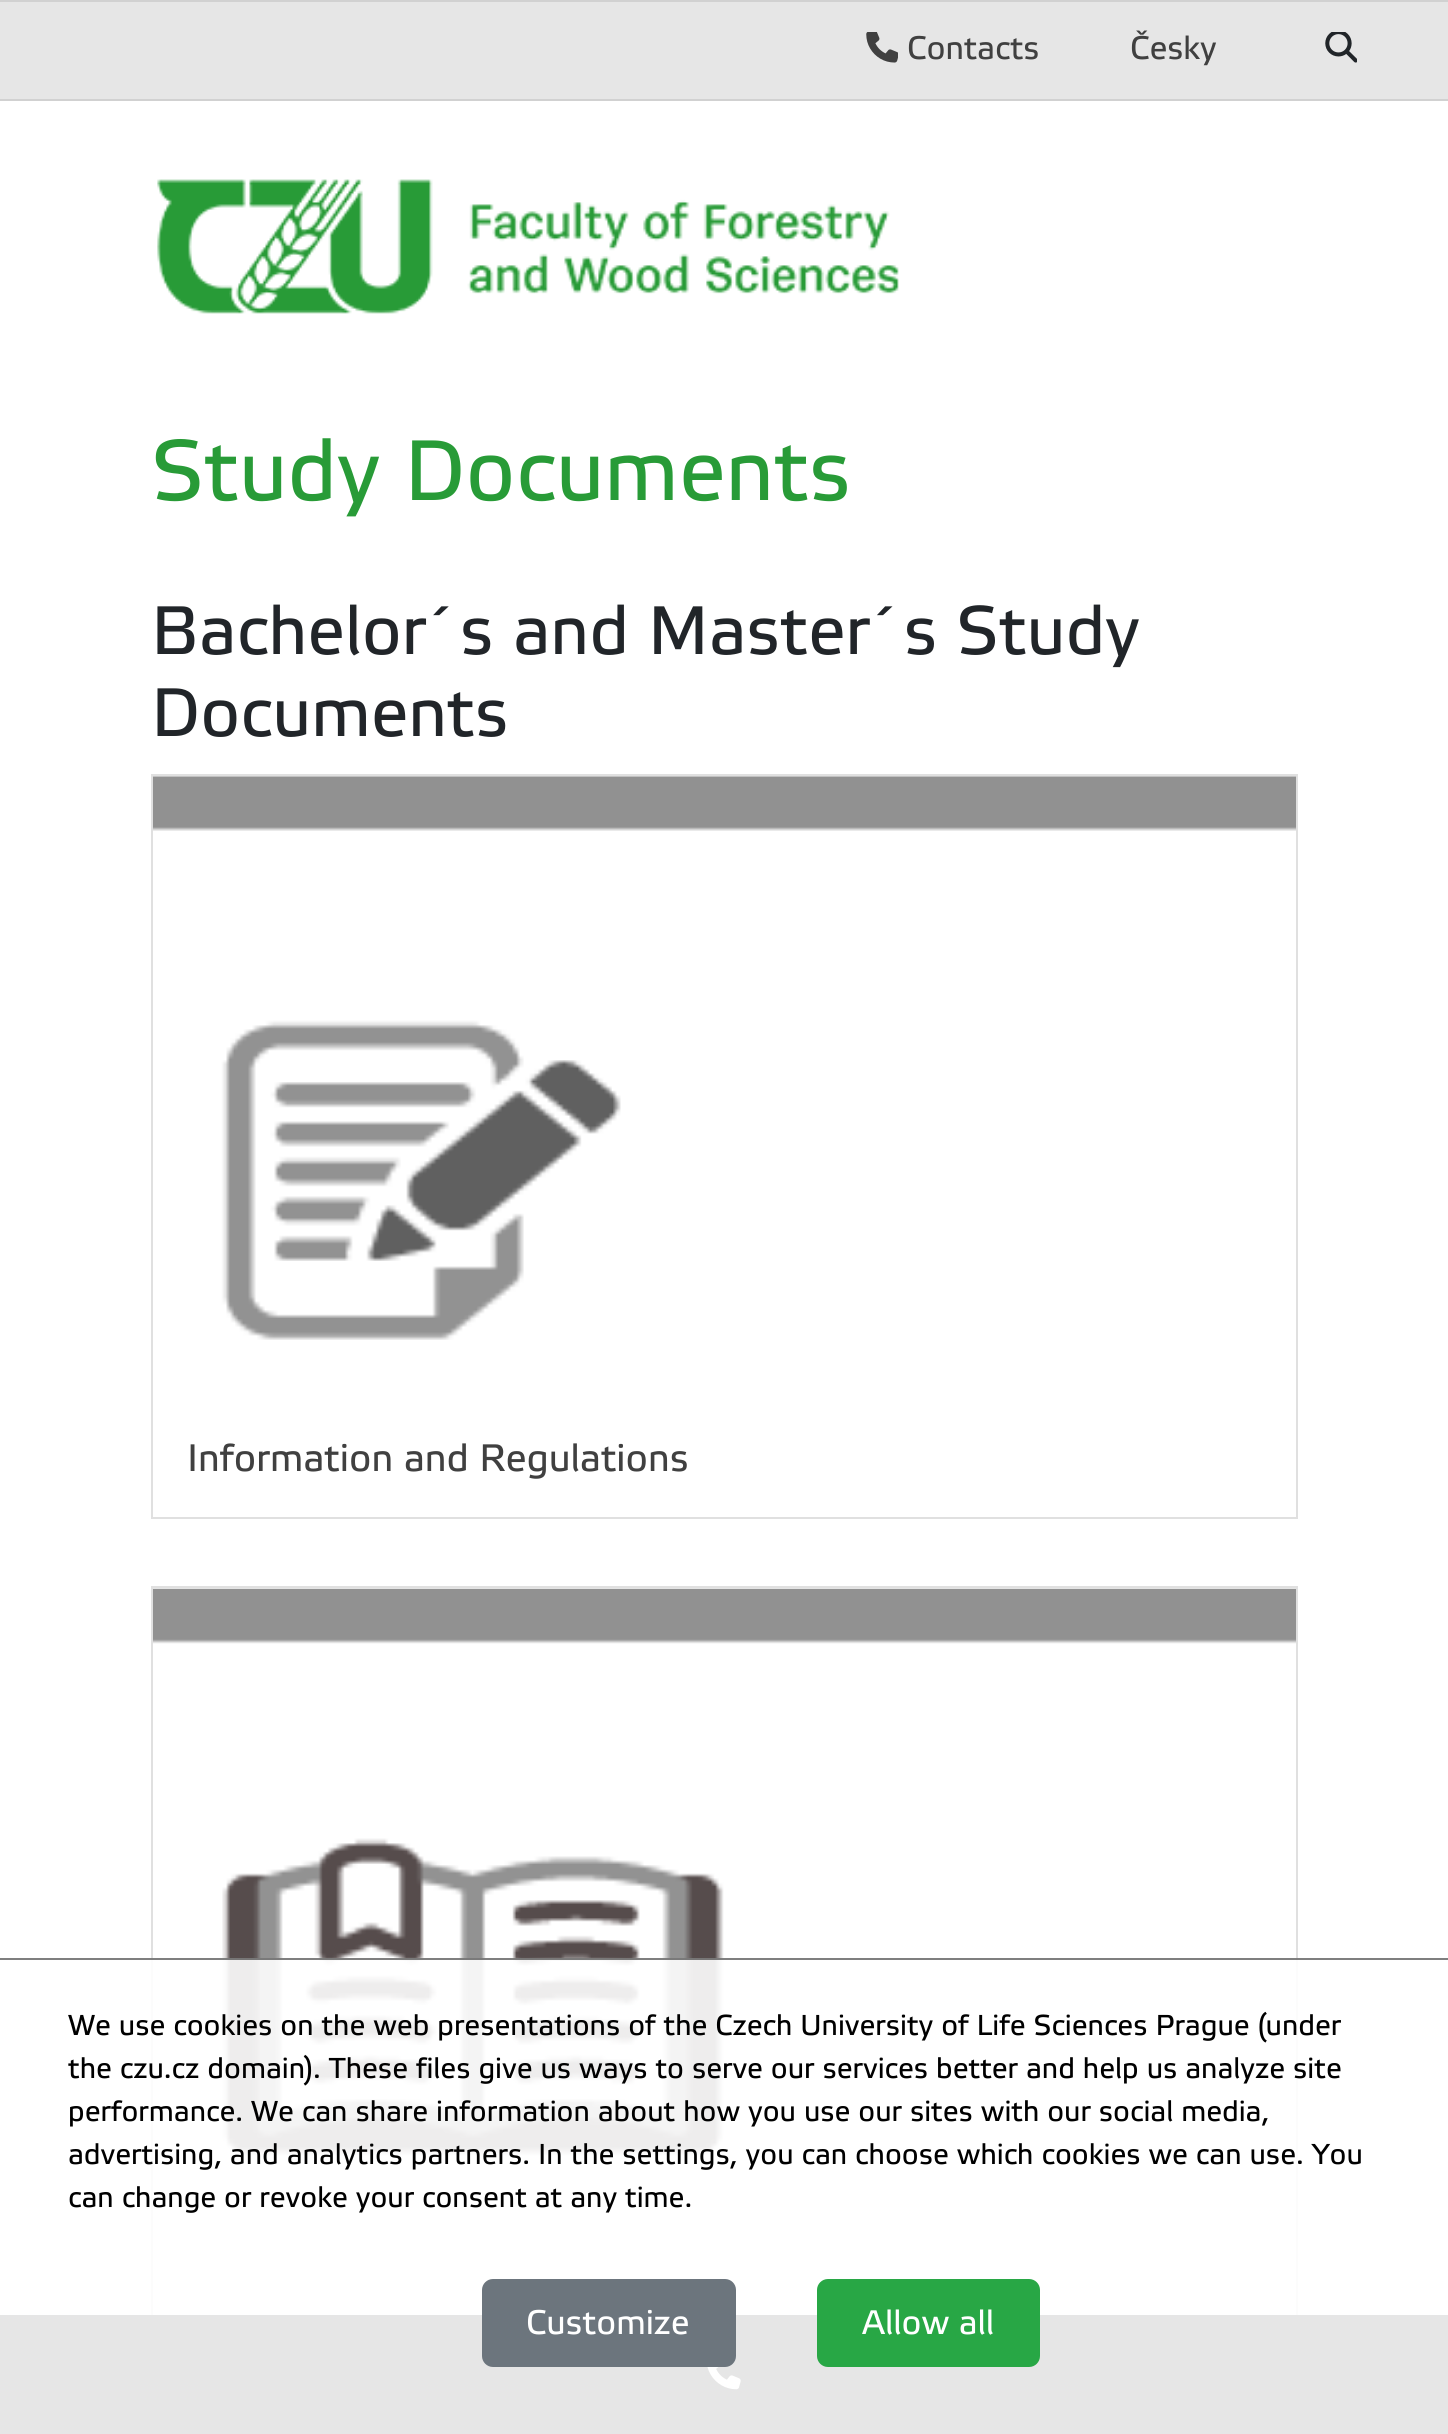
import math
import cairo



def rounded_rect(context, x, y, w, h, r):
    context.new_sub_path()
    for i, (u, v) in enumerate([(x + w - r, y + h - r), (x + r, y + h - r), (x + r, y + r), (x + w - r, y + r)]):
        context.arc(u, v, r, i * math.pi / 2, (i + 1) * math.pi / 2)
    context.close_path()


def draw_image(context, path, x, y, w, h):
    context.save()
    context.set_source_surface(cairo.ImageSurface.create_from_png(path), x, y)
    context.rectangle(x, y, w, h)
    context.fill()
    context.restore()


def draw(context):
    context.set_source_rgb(1, 1, 1)
    context.paint()
    context.set_source_rgb(230 / 255, 230 / 255, 230 / 255)
    context.rectangle(0, 2, 1448, 97)
    context.fill()
    context.set_source_rgb(209 / 255, 209 / 255, 209 / 255)
    context.rectangle(0, 0, 1448, 2)
    context.fill()
    context.rectangle(0, 99, 1448, 2)
    context.fill()
    draw_image(context, "images/1.png", 866, 32, 32, 31)
    draw_image(context, "images/2.png", 1325, 32, 32, 31)
    draw_image(context, "images/3.png", 157, 179, 742, 135)
    context.rectangle(152, 775, 1145, 743)
    context.set_source_rgb(224 / 255, 224 / 255, 224 / 255)
    context.stroke()
    draw_image(context, "images/4.png", 153, 776, 1143, 564)
    context.rectangle(152, 1587, 1145, 745)
    context.stroke()
    draw_image(context, "images/5.png", 153, 1588, 1143, 568)
    context.set_source_rgb(0, 0, 0)
    context.rectangle(0, 2315, 1448, 119)
    context.fill()
    draw_image(context, "images/6.png", 707, 2367, 34, 23)
    context.set_source_rgba(1, 1, 1, 0.9)
    context.rectangle(0, 1958, 1448, 476)
    context.fill()
    context.set_source_rgba(0, 0, 0, 0.5)
    context.rectangle(0, 1958, 1448, 2)
    context.fill()
    context.set_source_rgb(108 / 255, 117 / 255, 125 / 255)
    rounded_rect(context, 482, 2279, 254, 88, 11)
    context.fill()
    context.set_source_rgb(40 / 255, 167 / 255, 69 / 255)
    rounded_rect(context, 817, 2279, 223, 88, 11)
    context.fill()
    context.select_font_face("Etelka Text")
    context.set_font_size(32.5)
    context.set_source_rgb(64 / 255, 64 / 255, 64 / 255)
    context.move_to(907, 59)
    context.show_text("Contacts")
    context.move_to(1130, 59)
    context.show_text("Česky")
    context.set_font_size(85.5)
    context.set_source_rgb(40 / 255, 155 / 255, 55 / 255)
    context.move_to(151, 500)
    context.show_text("Study Documents")
    context.set_font_size(68.4)
    context.set_source_rgb(33 / 255, 37 / 255, 41 / 255)
    context.move_to(151, 654)
    context.show_text("Bachelor´s and Master´s Study")
    context.move_to(151, 736)
    context.show_text("Documents")
    context.set_font_size(38.25)
    context.set_source_rgb(64 / 255, 64 / 255, 64 / 255)
    context.move_to(187, 1471)
    context.show_text("Information and Regulations")
    context.set_font_size(28.8)
    context.set_source_rgb(0, 0, 0)
    context.move_to(68, 2035)
    context.show_text("We use cookies on the web presentations of the Czech University of Life Sciences Prague (under")
    context.move_to(68, 2078)
    context.show_text("the czu.cz domain). These files give us ways to serve our services better and help us analyze site")
    context.move_to(68, 2121)
    context.show_text("performance. We can share information about how you use our sites with our social media,")
    context.move_to(68, 2164)
    context.show_text("advertising, and analytics partners. In the settings, you can choose which cookies we can use. You")
    context.move_to(68, 2207)
    context.show_text("can change or revoke your consent at any time.")
    context.set_font_size(34)
    context.set_source_rgb(1, 1, 1)
    context.move_to(526, 2334)
    context.show_text("Customize")
    context.move_to(862, 2334)
    context.show_text("Allow all")


surface = cairo.ImageSurface(cairo.Format.RGB24, 1448, 2434)
context = cairo.Context(surface)
options = cairo.FontOptions()
options.set_hint_metrics(cairo.HintMetrics.OFF)
options.set_hint_style(cairo.HintStyle.NONE)
context.set_font_options(options)
context.set_miter_limit(4)
draw(context)
surface.write_to_png("out.png")
